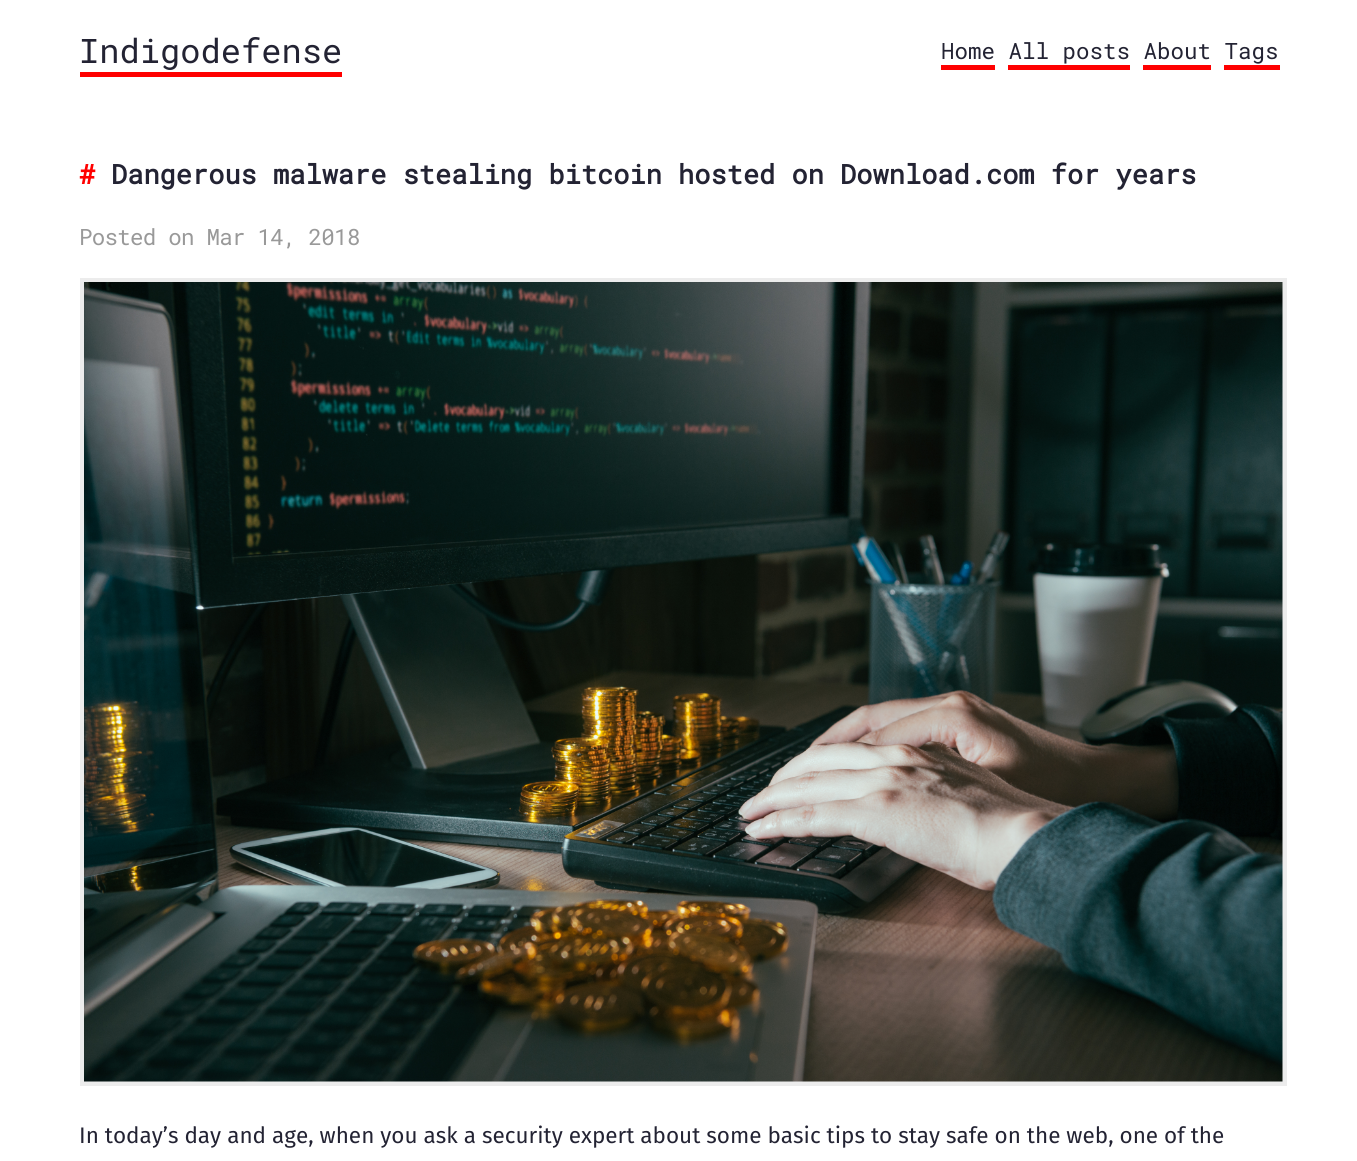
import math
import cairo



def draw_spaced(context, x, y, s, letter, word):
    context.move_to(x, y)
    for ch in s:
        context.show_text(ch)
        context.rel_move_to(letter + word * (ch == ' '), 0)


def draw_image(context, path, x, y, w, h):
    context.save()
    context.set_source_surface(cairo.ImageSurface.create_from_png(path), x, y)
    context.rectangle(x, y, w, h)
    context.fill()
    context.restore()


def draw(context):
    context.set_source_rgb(1, 1, 1)
    context.paint()
    context.set_source_rgb(1, 0, 0)
    context.rectangle(80, 72, 262, 5)
    context.fill()
    context.rectangle(941, 65, 54, 5)
    context.fill()
    context.rectangle(1008, 65, 122, 5)
    context.fill()
    context.rectangle(1143, 65, 68, 5)
    context.fill()
    context.rectangle(1224, 65, 56, 5)
    context.fill()
    context.rectangle(82.5, 280.5, 1202, 803)
    context.set_source_rgb(236 / 255, 236 / 255, 236 / 255)
    context.set_line_width(5)
    context.stroke()
    draw_image(context, "images/1.png", 84, 282, 1199, 800)
    context.select_font_face("Roboto Mono")
    context.set_font_size(33.75)
    context.set_source_rgb(35 / 255, 35 / 255, 51 / 255)
    context.move_to(79, 63)
    context.show_text("Indigodefense")
    context.set_font_size(22.5)
    context.move_to(941, 59)
    context.show_text("Home All posts About Tags")
    context.select_font_face("Roboto Mono", cairo.FontSlant.NORMAL, cairo.FontWeight.BOLD)
    context.set_font_size(27)
    context.set_source_rgb(1, 0, 0)
    context.move_to(79, 184)
    context.show_text("#")
    context.set_source_rgb(35 / 255, 35 / 255, 51 / 255)
    context.move_to(111, 184)
    context.show_text("Dangerous malware stealing bitcoin hosted on Download.com for years")
    context.select_font_face("Roboto Mono")
    context.set_font_size(22.5)
    context.set_source_rgb(153 / 255, 153 / 255, 153 / 255)
    draw_spaced(context, 79, 245, "Posted on Mar 14, 2018", -0.75, 0)
    context.select_font_face("Fira Sans")
    context.set_source_rgb(35 / 255, 35 / 255, 51 / 255)
    context.move_to(79, 1143)
    context.show_text("In today’s day and age, when you ask a security expert about some basic tips to stay safe on the web, one of the")


surface = cairo.ImageSurface(cairo.Format.RGB24, 1357, 1161)
context = cairo.Context(surface)
options = cairo.FontOptions()
options.set_hint_metrics(cairo.HintMetrics.OFF)
options.set_hint_style(cairo.HintStyle.NONE)
context.set_font_options(options)
context.set_miter_limit(4)
draw(context)
surface.write_to_png("out.png")
